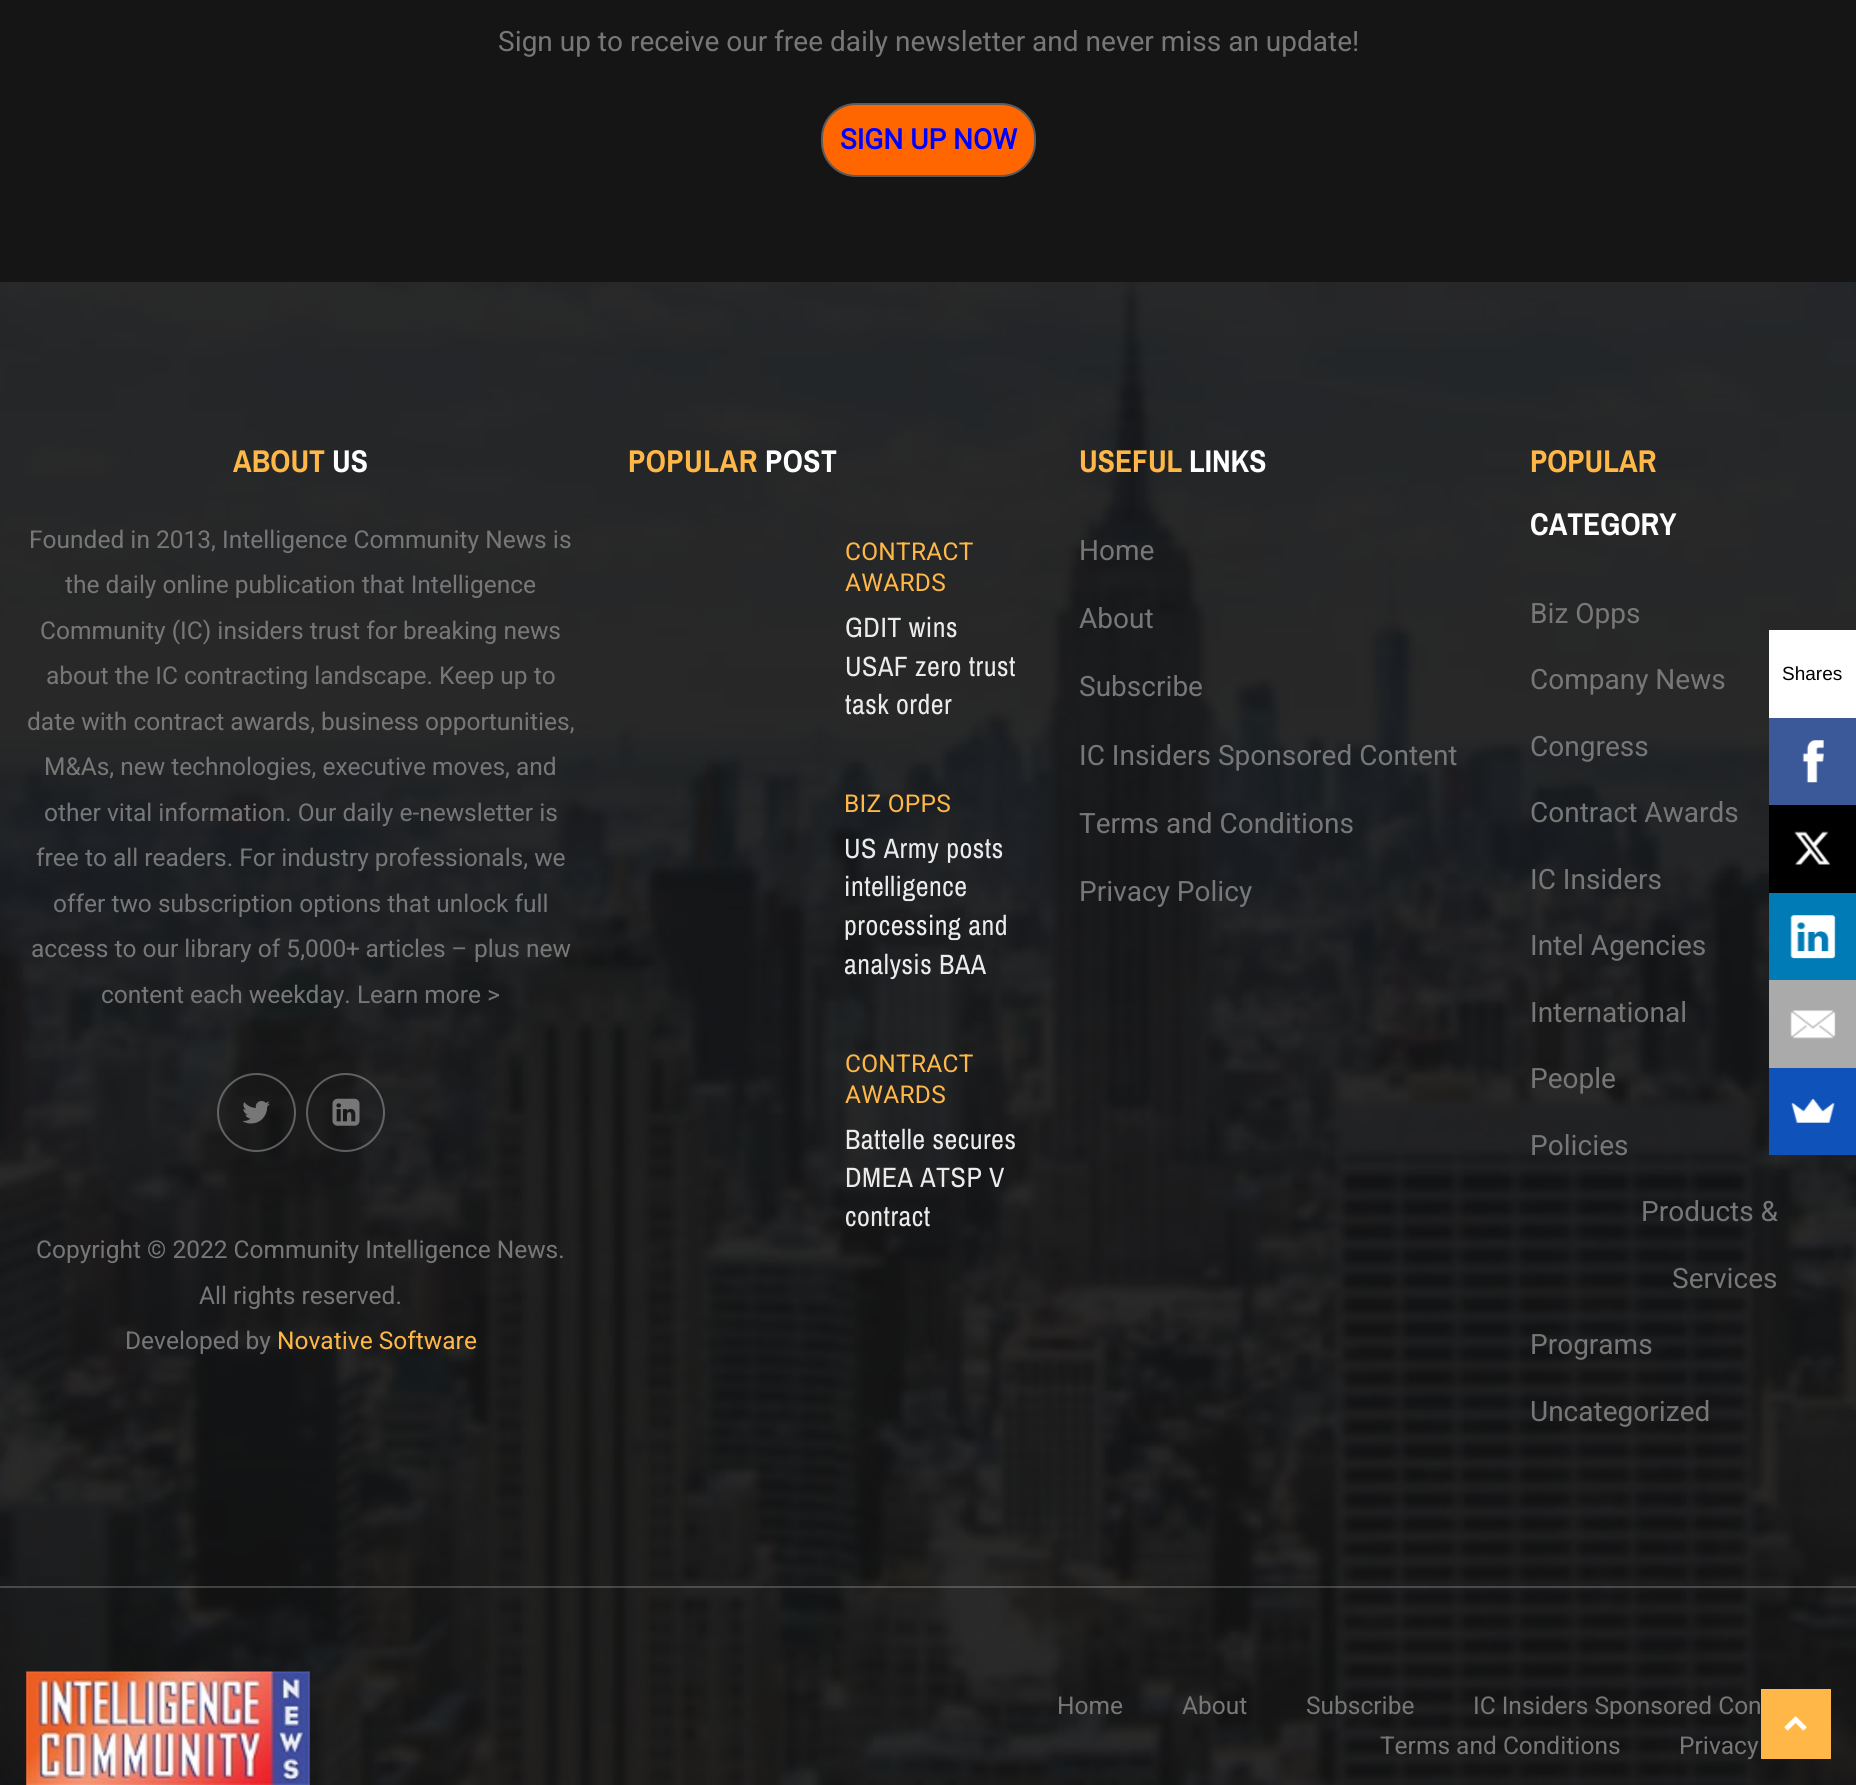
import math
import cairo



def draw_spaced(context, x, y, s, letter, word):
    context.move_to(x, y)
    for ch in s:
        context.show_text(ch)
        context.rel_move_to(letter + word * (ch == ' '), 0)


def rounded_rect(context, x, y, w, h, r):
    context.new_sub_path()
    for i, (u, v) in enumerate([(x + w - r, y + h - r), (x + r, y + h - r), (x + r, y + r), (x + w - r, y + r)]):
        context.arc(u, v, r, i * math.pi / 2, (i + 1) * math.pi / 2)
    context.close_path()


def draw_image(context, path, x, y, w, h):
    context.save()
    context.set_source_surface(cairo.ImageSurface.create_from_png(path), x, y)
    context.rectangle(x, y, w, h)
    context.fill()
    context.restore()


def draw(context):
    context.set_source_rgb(21 / 255, 21 / 255, 21 / 255)
    context.paint()
    context.set_source_rgb(1, 102 / 255, 0)
    rounded_rect(context, 822, 104, 213, 72, 34)
    context.fill_preserve()
    context.set_source_rgb(91 / 255, 91 / 255, 91 / 255)
    context.stroke()
    draw_image(context, "images/1.png", 0, 282, 1856, 1503)
    context.set_source_rgba(19 / 255, 19 / 255, 19 / 255, 0.9)
    context.rectangle(0, 282, 1856, 1304)
    context.fill()
    context.arc(256.5, 1112.5, 38.5, 0, 2 * math.pi)
    context.set_source_rgba(204 / 255, 204 / 255, 204 / 255, 0.4)
    context.stroke()
    draw_image(context, "images/2.png", 242, 1101, 28, 23)
    context.arc(345.5, 1112.5, 38.5, 0, 2 * math.pi)
    context.stroke()
    draw_image(context, "images/3.png", 332, 1098, 28, 28)
    context.set_source_rgba(19 / 255, 19 / 255, 19 / 255, 0.9)
    context.rectangle(0, 1586, 1856, 199)
    context.fill()
    context.set_source_rgba(1, 1, 1, 0.2)
    context.rectangle(0, 1586, 1856, 2)
    context.fill()
    draw_image(context, "images/4.png", 26, 1671, 284, 114)
    context.set_source_rgb(1, 1, 1)
    context.rectangle(1769, 630, 87, 88)
    context.fill()
    context.set_source_rgb(59 / 255, 89 / 255, 152 / 255)
    context.rectangle(1769, 718, 87, 87)
    context.fill()
    draw_image(context, "images/5.png", 1802, 740, 22, 43)
    context.set_source_rgb(0, 0, 0)
    context.rectangle(1769, 805, 87, 88)
    context.fill()
    draw_image(context, "images/6.png", 1794, 831, 36, 34)
    context.set_source_rgb(0, 123 / 255, 182 / 255)
    context.rectangle(1769, 893, 87, 87)
    context.fill()
    draw_image(context, "images/7.png", 1790, 915, 46, 44)
    context.set_source_rgb(170 / 255, 170 / 255, 170 / 255)
    context.rectangle(1769, 980, 87, 88)
    context.fill()
    draw_image(context, "images/8.png", 1790, 1010, 46, 29)
    context.set_source_rgb(15 / 255, 82 / 255, 186 / 255)
    context.rectangle(1769, 1068, 87, 87)
    context.fill()
    draw_image(context, "images/9.png", 1791, 1099, 44, 24)
    context.set_source_rgb(1, 184 / 255, 71 / 255)
    context.rectangle(1761, 1689, 70, 70)
    context.fill()
    draw_image(context, "images/10.png", 1784, 1716, 23, 15)
    context.select_font_face("Heebo")
    context.set_font_size(28)
    context.set_source_rgb(119 / 255, 119 / 255, 119 / 255)
    context.move_to(498, 51)
    context.show_text("Sign up to receive our free daily newsletter and never miss an update!")
    context.select_font_face("Heebo", cairo.FontSlant.NORMAL, cairo.FontWeight.BOLD)
    context.set_source_rgb(0, 0, 1)
    context.move_to(840, 149)
    context.show_text("SIGN UP NOW")
    context.select_font_face("Archivo Narrow", cairo.FontSlant.NORMAL, cairo.FontWeight.BOLD)
    context.set_font_size(31.5)
    context.set_source_rgb(1, 184 / 255, 71 / 255)
    context.move_to(233, 472)
    context.show_text("ABOUT")
    context.set_source_rgb(1, 1, 1)
    context.move_to(332, 472)
    context.show_text("US")
    context.select_font_face("Heebo")
    context.set_font_size(24.5)
    context.set_source_rgb(119 / 255, 119 / 255, 119 / 255)
    context.move_to(29, 548)
    context.show_text("Founded in 2013, Intelligence Community News is")
    context.move_to(65, 593)
    context.show_text("the daily online publication that Intelligence")
    context.move_to(40, 639)
    context.show_text("Community (IC) insiders trust for breaking news")
    context.move_to(46, 684)
    context.show_text("about the IC contracting landscape. Keep up to")
    context.move_to(27, 730)
    context.show_text("date with contract awards, business opportunities,")
    context.move_to(44, 775)
    context.show_text("M&As, new technologies, executive moves, and")
    context.move_to(44, 821)
    context.show_text("other vital information. Our daily e-newsletter is")
    context.move_to(36, 866)
    context.show_text("free to all readers. For industry professionals, we")
    context.move_to(53, 912)
    context.show_text("offer two subscription options that unlock full")
    context.move_to(31, 957)
    context.show_text("access to our library of 5,000+ articles – plus new")
    context.move_to(101, 1003)
    context.show_text("content each weekday. Learn more >")
    context.move_to(36, 1258)
    context.show_text("Copyright © 2022 Community Intelligence News.")
    context.move_to(199, 1304)
    context.show_text("All rights reserved.")
    context.move_to(125, 1349)
    context.show_text("Developed by")
    context.set_source_rgb(1, 184 / 255, 71 / 255)
    context.move_to(277, 1349)
    context.show_text("Novative Software")
    context.select_font_face("Archivo Narrow", cairo.FontSlant.NORMAL, cairo.FontWeight.BOLD)
    context.set_font_size(31.5)
    draw_spaced(context, 628, 472, "POPULAR", 0.5, 0)
    context.set_source_rgb(1, 1, 1)
    draw_spaced(context, 765, 472, "POST", 0.5, 0)
    context.select_font_face("Heebo")
    context.set_font_size(24.5)
    context.set_source_rgb(1, 184 / 255, 71 / 255)
    draw_spaced(context, 845, 560, "CONTRACT", 0.25, 0)
    draw_spaced(context, 845, 591, "AWARDS", 0.25, 0)
    context.select_font_face("Archivo Narrow")
    context.set_font_size(28)
    context.set_source_rgb(235 / 255, 235 / 255, 235 / 255)
    draw_spaced(context, 845, 637, "GDIT wins", 0.5, 0)
    draw_spaced(context, 845, 676, "USAF zero trust", 0.5, 0)
    draw_spaced(context, 845, 714, "task order", 0.5, 0)
    context.select_font_face("Heebo")
    context.set_font_size(24.5)
    context.set_source_rgb(1, 184 / 255, 71 / 255)
    draw_spaced(context, 844, 812, "BIZ OPPS", 0.25, 0)
    context.select_font_face("Archivo Narrow")
    context.set_font_size(28)
    context.set_source_rgb(235 / 255, 235 / 255, 235 / 255)
    draw_spaced(context, 844, 858, "US Army posts", 0.5, 0)
    draw_spaced(context, 844, 896, "intelligence", 0.5, 0)
    draw_spaced(context, 844, 935, "processing and", 0.5, 0)
    draw_spaced(context, 844, 974, "analysis BAA", 0.5, 0)
    context.select_font_face("Heebo")
    context.set_font_size(24.5)
    context.set_source_rgb(1, 184 / 255, 71 / 255)
    draw_spaced(context, 845, 1072, "CONTRACT", 0.25, 0)
    draw_spaced(context, 845, 1103, "AWARDS", 0.25, 0)
    context.select_font_face("Archivo Narrow")
    context.set_font_size(28)
    context.set_source_rgb(235 / 255, 235 / 255, 235 / 255)
    draw_spaced(context, 845, 1149, "Battelle secures", 0.5, 0)
    draw_spaced(context, 845, 1187, "DMEA ATSP V", 0.5, 0)
    draw_spaced(context, 845, 1226, "contract", 0.5, 0)
    context.select_font_face("Archivo Narrow", cairo.FontSlant.NORMAL, cairo.FontWeight.BOLD)
    context.set_font_size(31.5)
    context.set_source_rgb(1, 184 / 255, 71 / 255)
    context.move_to(1079, 472)
    context.show_text("USEFUL")
    context.set_source_rgb(1, 1, 1)
    context.move_to(1189, 472)
    context.show_text("LINKS")
    context.select_font_face("Heebo")
    context.set_font_size(28)
    context.set_source_rgb(119 / 255, 119 / 255, 119 / 255)
    context.move_to(1079, 560)
    context.show_text("Home")
    context.move_to(1079, 628)
    context.show_text("About")
    context.move_to(1079, 696)
    context.show_text("Subscribe")
    context.move_to(1079, 765)
    context.show_text("IC Insiders Sponsored Content")
    context.move_to(1079, 833)
    context.show_text("Terms and Conditions")
    context.move_to(1079, 901)
    context.show_text("Privacy Policy")
    context.select_font_face("Archivo Narrow", cairo.FontSlant.NORMAL, cairo.FontWeight.BOLD)
    context.set_font_size(31.5)
    context.set_source_rgb(1, 184 / 255, 71 / 255)
    context.move_to(1530, 472)
    context.show_text("POPULAR")
    context.set_source_rgb(1, 1, 1)
    context.move_to(1530, 535)
    context.show_text("CATEGORY")
    context.select_font_face("Heebo")
    context.set_font_size(28)
    context.set_source_rgb(119 / 255, 119 / 255, 119 / 255)
    context.move_to(1530, 623)
    context.show_text("Biz Opps")
    context.move_to(1530, 689)
    context.show_text("Company News")
    context.move_to(1530, 756)
    context.show_text("Congress")
    context.move_to(1530, 822)
    context.show_text("Contract Awards")
    context.move_to(1530, 889)
    context.show_text("IC Insiders")
    context.move_to(1530, 955)
    context.show_text("Intel Agencies")
    context.move_to(1530, 1022)
    context.show_text("International")
    context.move_to(1530, 1088)
    context.show_text("People")
    context.move_to(1530, 1155)
    context.show_text("Policies")
    context.move_to(1641, 1221)
    context.show_text("Products &")
    context.move_to(1672, 1288)
    context.show_text("Services")
    context.move_to(1530, 1354)
    context.show_text("Programs")
    context.move_to(1530, 1421)
    context.show_text("Uncategorized")
    context.set_font_size(24.5)
    context.move_to(1057, 1714)
    context.show_text("Home")
    context.move_to(1182, 1714)
    context.show_text("About")
    context.move_to(1306, 1714)
    context.show_text("Subscribe")
    context.move_to(1473, 1714)
    context.show_text("IC Insiders Sponsored Con")
    context.move_to(1380, 1754)
    context.show_text("Terms and Conditions")
    context.move_to(1679, 1754)
    context.show_text("Privacy")
    context.select_font_face("Liberation Sans")
    context.set_font_size(19)
    context.set_source_rgb(0, 0, 0)
    context.move_to(1782, 680)
    context.show_text("Shares")


surface = cairo.ImageSurface(cairo.Format.RGB24, 1856, 1785)
context = cairo.Context(surface)
options = cairo.FontOptions()
options.set_hint_metrics(cairo.HintMetrics.OFF)
options.set_hint_style(cairo.HintStyle.NONE)
context.set_font_options(options)
context.set_miter_limit(4)
draw(context)
surface.write_to_png("out.png")
